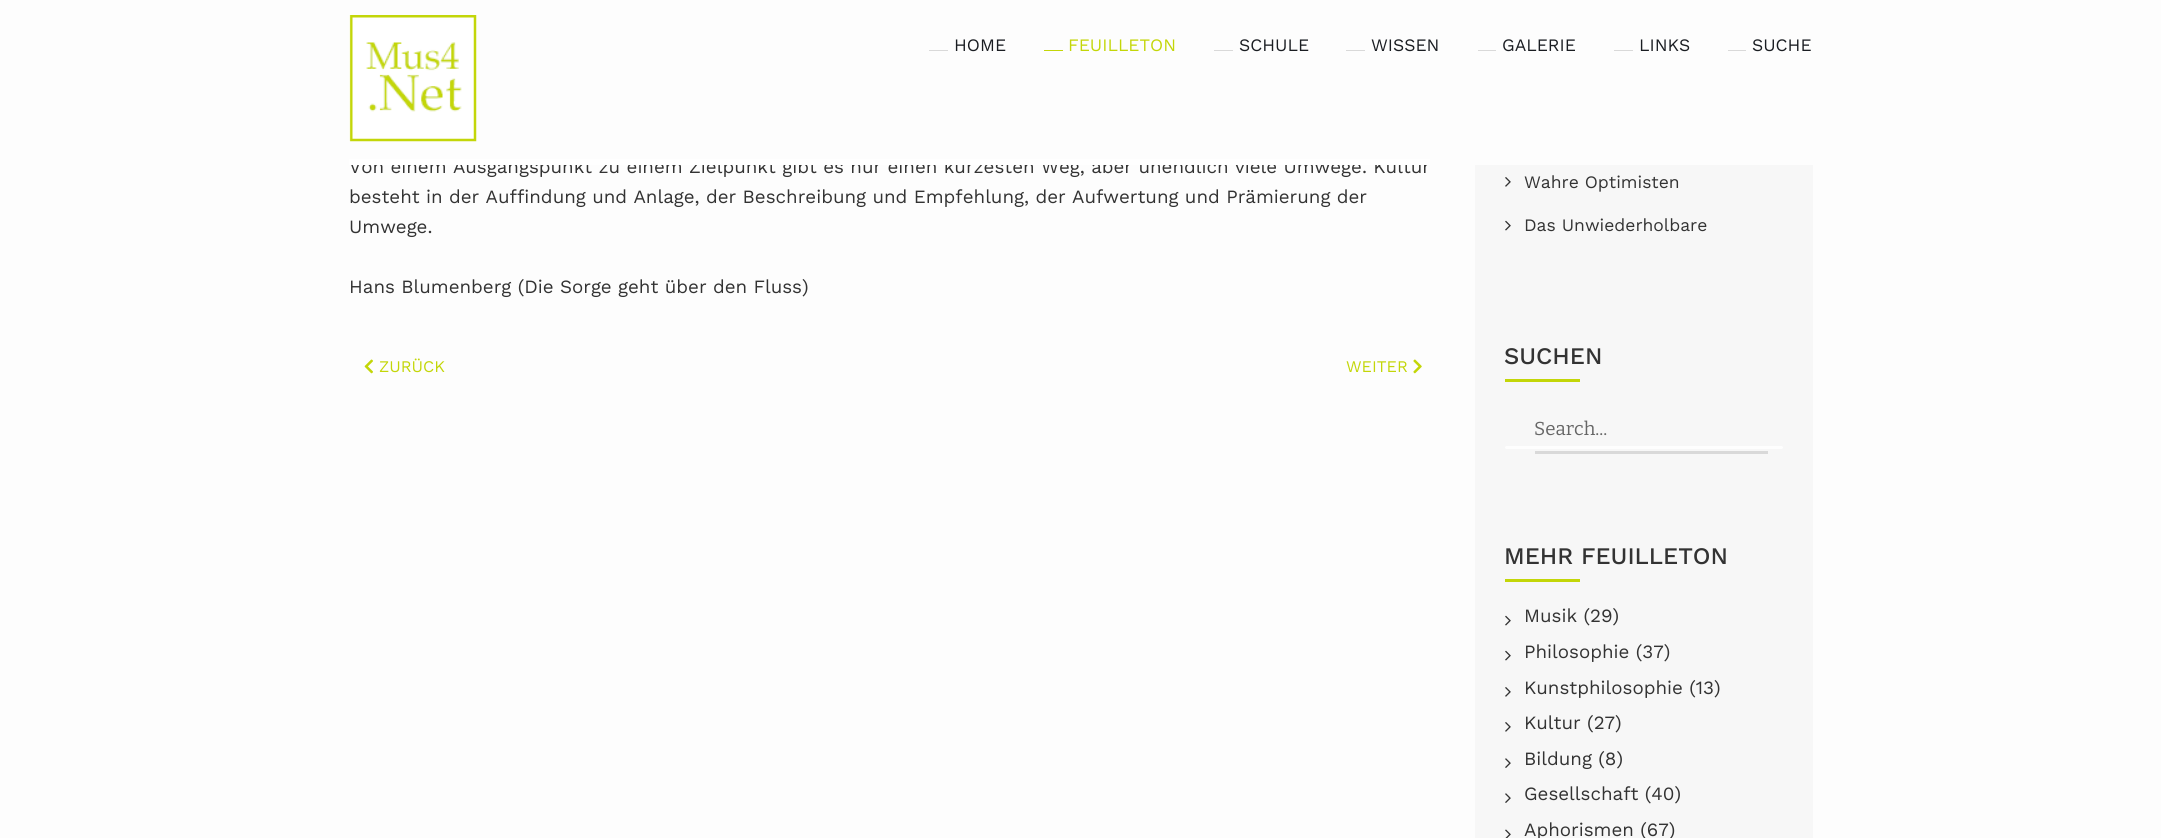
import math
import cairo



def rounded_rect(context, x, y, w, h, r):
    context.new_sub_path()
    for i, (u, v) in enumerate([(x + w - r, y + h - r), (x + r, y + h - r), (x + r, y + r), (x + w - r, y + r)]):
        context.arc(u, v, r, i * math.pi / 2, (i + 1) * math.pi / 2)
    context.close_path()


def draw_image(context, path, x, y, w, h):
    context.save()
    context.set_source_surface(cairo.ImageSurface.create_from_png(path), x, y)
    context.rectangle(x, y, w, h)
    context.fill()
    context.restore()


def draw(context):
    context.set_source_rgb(253 / 255, 253 / 255, 253 / 255)
    context.paint()
    draw_image(context, "images/1.png", 349, 15, 128, 127)
    context.set_source_rgb(217 / 255, 217 / 255, 217 / 255)
    context.rectangle(929, 50, 19, 1)
    context.fill()
    context.set_source_rgb(195 / 255, 214 / 255, 8 / 255)
    context.rectangle(1044, 50, 19, 1)
    context.fill()
    context.set_source_rgb(217 / 255, 217 / 255, 217 / 255)
    context.rectangle(1214, 50, 19, 1)
    context.fill()
    context.rectangle(1346, 50, 19, 1)
    context.fill()
    context.rectangle(1478, 50, 18, 1)
    context.fill()
    context.rectangle(1614, 50, 19, 1)
    context.fill()
    context.rectangle(1728, 50, 18, 1)
    context.fill()
    draw_image(context, "images/2.png", 364, 359, 9, 15)
    draw_image(context, "images/3.png", 1413, 359, 9, 15)
    context.set_source_rgb(247 / 255, 247 / 255, 247 / 255)
    context.rectangle(1475, 165, 338, 673)
    context.fill()
    draw_image(context, "images/4.png", 1505, 177, 6, 10)
    draw_image(context, "images/5.png", 1505, 220, 6, 11)
    context.set_source_rgb(195 / 255, 214 / 255, 8 / 255)
    context.rectangle(1505, 379, 75, 3)
    context.fill()
    context.set_source_rgb(217 / 255, 217 / 255, 217 / 255)
    context.rectangle(1535, 451, 233, 3)
    context.fill()
    context.set_source_rgb(254 / 255, 254 / 255, 254 / 255)
    rounded_rect(context, 1505, 446, 278, 3, 1.5)
    context.fill()
    context.set_source_rgb(195 / 255, 214 / 255, 8 / 255)
    context.rectangle(1505, 579, 75, 3)
    context.fill()
    draw_image(context, "images/5.png", 1505, 615, 6, 11)
    draw_image(context, "images/5.png", 1505, 650, 6, 11)
    draw_image(context, "images/4.png", 1505, 687, 6, 10)
    draw_image(context, "images/4.png", 1505, 722, 6, 10)
    draw_image(context, "images/6.png", 1505, 758, 6, 10)
    draw_image(context, "images/6.png", 1505, 793, 6, 10)
    draw_image(context, "images/7.png", 1505, 829, 6, 9)
    context.select_font_face("Work Sans")
    context.set_font_size(17.5)
    context.set_source_rgb(26 / 255, 29 / 255, 34 / 255)
    context.move_to(954, 51)
    context.show_text("HOME")
    context.set_source_rgb(195 / 255, 214 / 255, 8 / 255)
    context.move_to(1068, 51)
    context.show_text("FEUILLETON")
    context.set_source_rgb(26 / 255, 29 / 255, 34 / 255)
    context.move_to(1239, 51)
    context.show_text("SCHULE")
    context.move_to(1371, 51)
    context.show_text("WISSEN")
    context.move_to(1502, 51)
    context.show_text("GALERIE")
    context.move_to(1639, 51)
    context.show_text("LINKS")
    context.move_to(1752, 51)
    context.show_text("SUCHE")
    context.set_font_size(18.75)
    context.set_source_rgb(51 / 255, 51 / 255, 51 / 255)
    context.move_to(349, 173)
    context.show_text("Von einem Ausgangspunkt zu einem Zielpunkt gibt es nur einen kürzesten Weg, aber unendlich viele Umwege. Kultur")
    context.set_source_rgb(1, 1, 1)
    context.rectangle(349, 159, 1081, 6)
    context.fill()
    context.set_source_rgb(51 / 255, 51 / 255, 51 / 255)
    context.move_to(349, 203)
    context.show_text("besteht in der Auffindung und Anlage, der Beschreibung und Empfehlung, der Aufwertung und Prämierung der")
    context.move_to(349, 233)
    context.show_text("Umwege.")
    context.move_to(349, 293)
    context.show_text("Hans Blumenberg (Die Sorge geht über den Fluss)")
    context.set_font_size(16.25)
    context.set_source_rgb(195 / 255, 214 / 255, 8 / 255)
    context.move_to(379, 372)
    context.show_text("ZURÜCK")
    context.move_to(1346, 372)
    context.show_text("WEITER")
    context.set_font_size(17.5)
    context.set_source_rgb(51 / 255, 51 / 255, 51 / 255)
    context.move_to(1524, 188)
    context.show_text("Wahre Optimisten")
    context.move_to(1524, 231)
    context.show_text("Das Unwiederholbare")
    context.select_font_face("Work Sans Medium")
    context.set_font_size(23.75)
    context.move_to(1504, 364)
    context.show_text("SUCHEN")
    context.select_font_face("Bitter")
    context.set_font_size(18.75)
    context.set_source_rgb(102 / 255, 102 / 255, 102 / 255)
    context.move_to(1534, 435)
    context.show_text("Search...")
    context.select_font_face("Work Sans Medium")
    context.set_font_size(23.75)
    context.set_source_rgb(51 / 255, 51 / 255, 51 / 255)
    context.move_to(1504, 564)
    context.show_text("MEHR FEUILLETON")
    context.select_font_face("Work Sans")
    context.set_font_size(18.75)
    context.move_to(1524, 622)
    context.show_text("Musik (29)")
    context.move_to(1524, 658)
    context.show_text("Philosophie (37)")
    context.move_to(1524, 694)
    context.show_text("Kunstphilosophie (13)")
    context.move_to(1524, 729)
    context.show_text("Kultur (27)")
    context.move_to(1524, 765)
    context.show_text("Bildung (8)")
    context.move_to(1524, 800)
    context.show_text("Gesellschaft (40)")
    context.move_to(1524, 836)
    context.show_text("Aphorismen (67)")


surface = cairo.ImageSurface(cairo.Format.RGB24, 2161, 838)
context = cairo.Context(surface)
options = cairo.FontOptions()
options.set_hint_metrics(cairo.HintMetrics.OFF)
options.set_hint_style(cairo.HintStyle.NONE)
context.set_font_options(options)
context.set_miter_limit(4)
draw(context)
surface.write_to_png("out.png")
